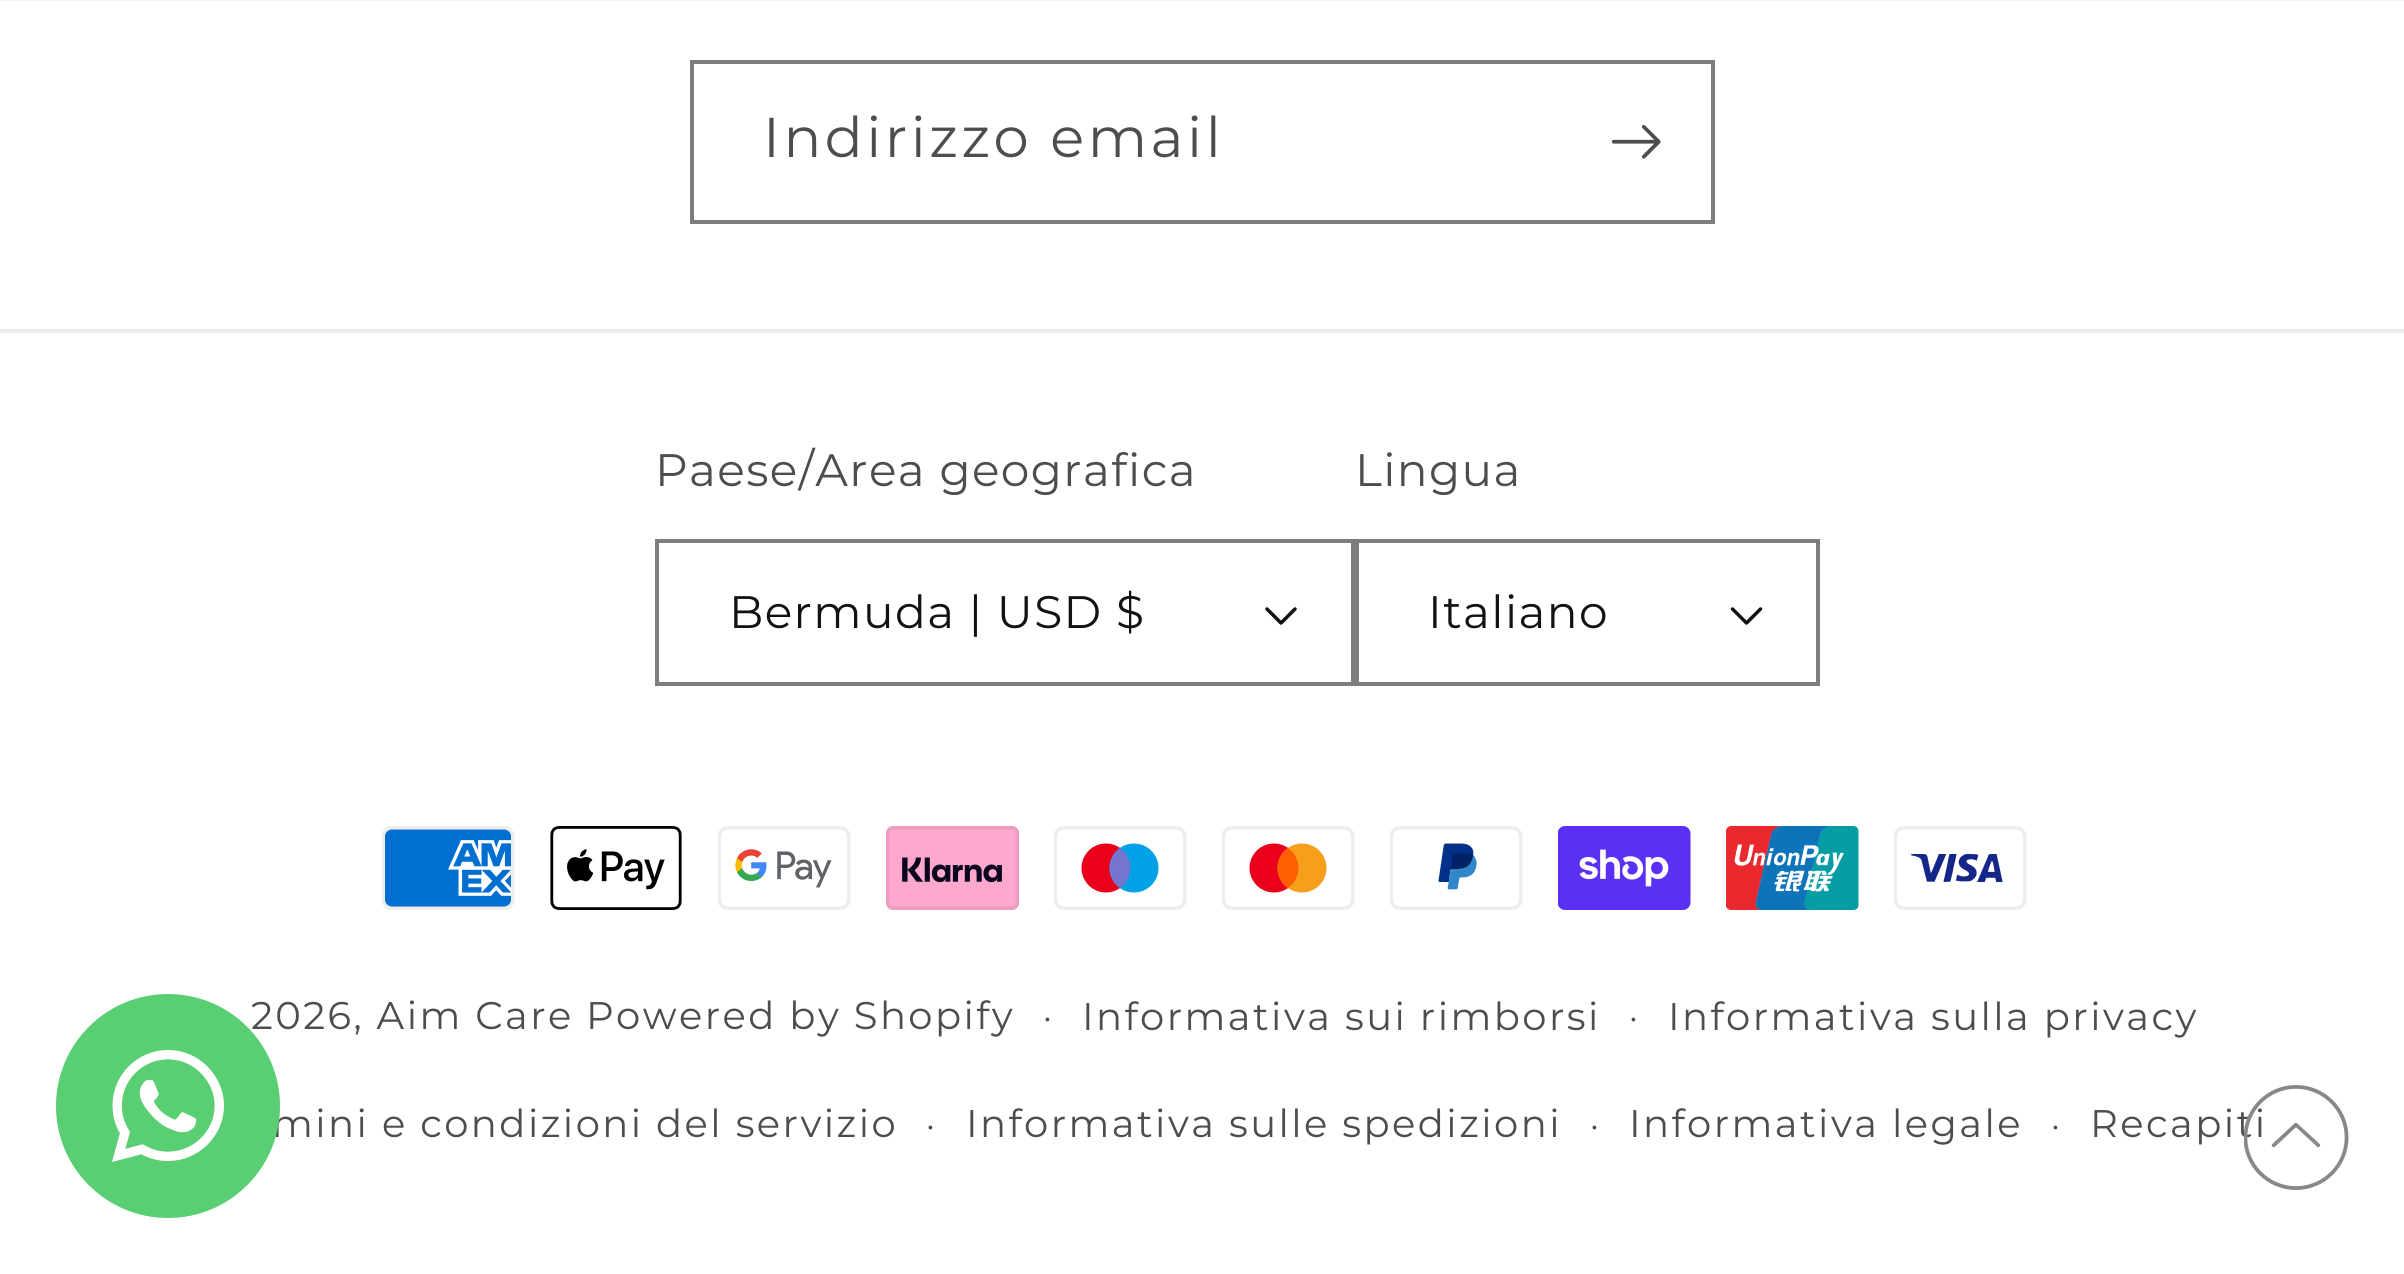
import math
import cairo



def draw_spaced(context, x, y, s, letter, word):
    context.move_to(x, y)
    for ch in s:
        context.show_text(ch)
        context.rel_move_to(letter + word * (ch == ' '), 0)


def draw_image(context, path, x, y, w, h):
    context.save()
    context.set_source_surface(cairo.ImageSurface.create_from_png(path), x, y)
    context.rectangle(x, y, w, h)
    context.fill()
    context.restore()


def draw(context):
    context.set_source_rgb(1, 1, 1)
    context.paint()
    context.set_source_rgb(241 / 255, 241 / 255, 241 / 255)
    context.rectangle(0, 0, 2404, 1)
    context.fill()
    context.rectangle(692, 62, 1021, 160)
    context.set_source_rgb(125 / 255, 125 / 255, 125 / 255)
    context.set_line_width(4)
    context.stroke()
    draw_image(context, "images/2.png", 1611, 124, 50, 35)
    context.set_source_rgb(236 / 255, 236 / 255, 236 / 255)
    context.rectangle(0, 329, 2404, 4)
    context.fill()
    draw_image(context, "images/3.png", 1265, 607, 32, 18)
    context.rectangle(657, 541, 696, 143)
    context.set_source_rgb(125 / 255, 125 / 255, 125 / 255)
    context.stroke()
    draw_image(context, "images/4.png", 1730, 607, 33, 18)
    context.rectangle(1357, 541, 461, 143)
    context.stroke()
    draw_image(context, "images/5.png", 382, 826, 133, 84)
    draw_image(context, "images/6.png", 550, 826, 132, 84)
    draw_image(context, "images/7.png", 718, 826, 133, 84)
    draw_image(context, "images/8.png", 886, 826, 133, 84)
    draw_image(context, "images/9.png", 1054, 826, 133, 84)
    draw_image(context, "images/10.png", 1222, 826, 133, 84)
    draw_image(context, "images/11.png", 1390, 826, 133, 84)
    draw_image(context, "images/12.png", 1558, 826, 133, 84)
    draw_image(context, "images/13.png", 1726, 826, 133, 84)
    draw_image(context, "images/14.png", 1894, 826, 133, 84)
    context.select_font_face("Montserrat")
    context.set_font_size(56)
    context.set_source_rgb(77 / 255, 77 / 255, 77 / 255)
    draw_spaced(context, 763, 157, "Indirizzo email", 3.5, 0)
    context.set_font_size(45.5)
    draw_spaced(context, 655, 486, "Paese/Area geografica", 1.4, 0)
    context.set_source_rgb(18 / 255, 18 / 255, 18 / 255)
    draw_spaced(context, 729, 628, "Bermuda | USD $", 1.4, 0)
    context.set_source_rgb(77 / 255, 77 / 255, 77 / 255)
    draw_spaced(context, 1355, 486, "Lingua", 1.4, 0)
    context.set_source_rgb(18 / 255, 18 / 255, 18 / 255)
    draw_spaced(context, 1428, 628, "Italiano", 1.4, 0)
    context.set_font_size(38.5)
    context.set_source_rgb(77 / 255, 77 / 255, 77 / 255)
    draw_spaced(context, 251, 1029, "2026, Aim Care", 2.45, 0)
    draw_spaced(context, 586, 1029, "Powered by Shopify", 2.45, 0)
    context.set_font_size(35)
    draw_spaced(context, 1043, 1029, "·", 2.45, 0)
    context.set_font_size(38.5)
    draw_spaced(context, 1082, 1030, "Informativa sui rimborsi", 2.45, 0)
    context.set_font_size(35)
    draw_spaced(context, 1629, 1029, "·", 2.45, 0)
    context.set_font_size(38.5)
    draw_spaced(context, 1668, 1030, "Informativa sulla privacy", 2.45, 0)
    draw_spaced(context, 272, 1137, "mini e condizioni del servizio", 2.45, 0)
    context.set_source_rgb(89 / 255, 206 / 255, 114 / 255)
    context.new_path()
    context.arc(168, 1106, 112, 0, 2 * math.pi)
    context.fill()
    draw_image(context, "images/1.png", 112, 1050, 112, 112)
    context.set_font_size(35)
    context.set_source_rgb(77 / 255, 77 / 255, 77 / 255)
    draw_spaced(context, 926, 1137, "·", 2.45, 0)
    context.set_font_size(38.5)
    draw_spaced(context, 966, 1137, "Informativa sulle spedizioni", 2.45, 0)
    context.set_font_size(35)
    draw_spaced(context, 1590, 1137, "·", 2.45, 0)
    context.set_font_size(38.5)
    draw_spaced(context, 1629, 1137, "Informativa legale", 2.45, 0)
    context.set_font_size(35)
    draw_spaced(context, 2051, 1137, "·", 2.45, 0)
    context.set_font_size(38.5)
    draw_spaced(context, 2090, 1137, "Recapiti", 2.45, 0)
    draw_image(context, "images/15.png", 2244, 1085, 105, 105)


surface = cairo.ImageSurface(cairo.Format.RGB24, 2404, 1274)
context = cairo.Context(surface)
options = cairo.FontOptions()
options.set_hint_metrics(cairo.HintMetrics.OFF)
options.set_hint_style(cairo.HintStyle.NONE)
context.set_font_options(options)
context.set_miter_limit(4)
draw(context)
surface.write_to_png("out.png")
